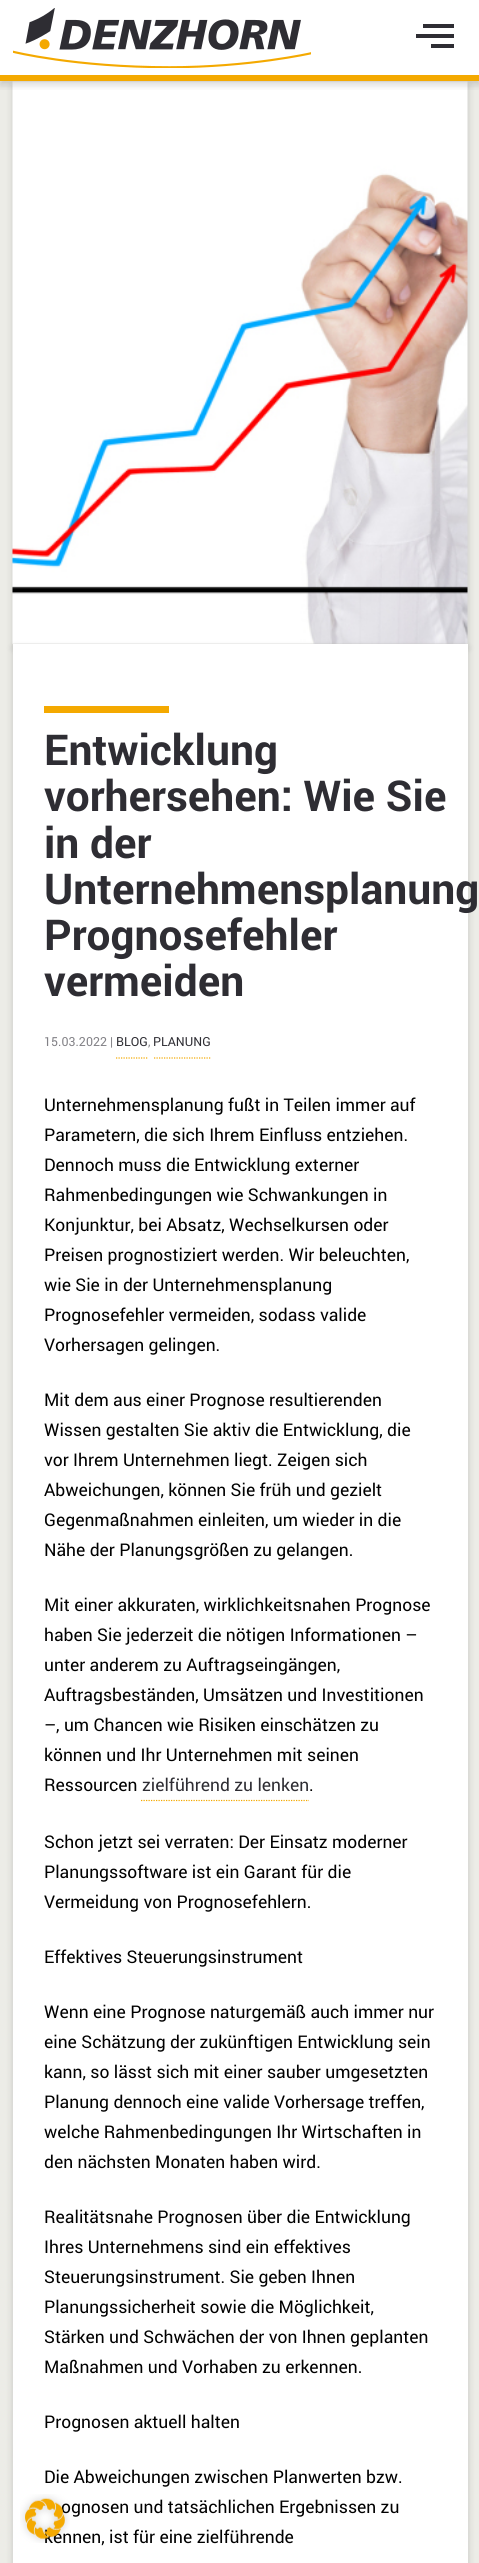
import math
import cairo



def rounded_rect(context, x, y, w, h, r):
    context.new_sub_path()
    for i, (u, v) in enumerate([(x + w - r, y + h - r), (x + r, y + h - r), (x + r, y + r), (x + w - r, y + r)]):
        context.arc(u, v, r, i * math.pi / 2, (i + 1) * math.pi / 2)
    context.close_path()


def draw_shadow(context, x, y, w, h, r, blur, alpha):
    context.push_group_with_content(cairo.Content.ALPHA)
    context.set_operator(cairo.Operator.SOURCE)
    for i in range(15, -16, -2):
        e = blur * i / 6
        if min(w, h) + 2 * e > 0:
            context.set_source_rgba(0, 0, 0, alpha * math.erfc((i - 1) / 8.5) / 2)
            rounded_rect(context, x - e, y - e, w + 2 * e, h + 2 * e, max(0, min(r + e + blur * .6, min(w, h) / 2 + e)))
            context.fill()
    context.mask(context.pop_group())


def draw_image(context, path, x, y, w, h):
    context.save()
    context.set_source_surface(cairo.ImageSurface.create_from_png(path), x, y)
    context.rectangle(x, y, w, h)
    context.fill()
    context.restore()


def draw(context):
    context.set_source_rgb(1, 1, 1)
    context.paint()
    context.set_source_rgb(236 / 255, 236 / 255, 231 / 255)
    context.rectangle(0, 81, 479, 2482)
    context.fill()
    context.set_source_rgb(0, 0, 0)
    draw_shadow(context, 13, 85, 455, 563, 0, 4, 0.16)
    draw_image(context, "images/2.png", 12, 81, 456, 563)
    context.save()
    context.rectangle(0, 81, 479, 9)
    context.clip()
    draw_shadow(context, 0, 4, 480, 81, 0, 4, 0.16)
    context.restore()
    context.set_source_rgb(244 / 255, 169 / 255, 0)
    context.rectangle(0, 75, 479, 6)
    context.fill()
    draw_image(context, "images/1.png", 13, 8, 298, 60)
    context.set_source_rgb(46 / 255, 45 / 255, 51 / 255)
    context.rectangle(423, 24, 31, 4)
    context.fill()
    context.rectangle(416, 34, 38, 4)
    context.fill()
    context.rectangle(431, 44, 23, 4)
    context.fill()
    context.set_source_rgb(0, 0, 0)
    draw_shadow(context, 13, 648, 455, 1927, 0, 4, 0.16)
    context.set_source_rgb(1, 1, 1)
    context.rectangle(13, 644, 455, 1919)
    context.fill()
    context.set_source_rgb(244 / 255, 169 / 255, 0)
    context.rectangle(44, 706, 125, 7)
    context.fill()
    context.new_path()
    context.move_to(116, 1058)
    context.line_to(147.5, 1058)
    context.set_line_width(1.2)
    context.set_dash([1.25, 1.25])
    context.stroke()
    context.new_path()
    context.move_to(154, 1058)
    context.line_to(211, 1058)
    context.stroke()
    context.new_path()
    context.move_to(141, 1800.5)
    context.line_to(309, 1800.5)
    context.stroke()
    context.select_font_face("Roboto", cairo.FontSlant.NORMAL, cairo.FontWeight.BOLD)
    context.set_font_size(42.5)
    context.set_source_rgb(46 / 255, 45 / 255, 51 / 255)
    context.move_to(44, 765)
    context.show_text("Entwicklung")
    context.move_to(44, 811)
    context.show_text("vorhersehen: Wie Sie")
    context.move_to(44, 858)
    context.show_text("in der")
    context.move_to(44, 904)
    context.show_text("Unternehmensplanung")
    context.move_to(44, 950)
    context.show_text("Prognosefehler")
    context.move_to(44, 996)
    context.show_text("vermeiden")
    context.select_font_face("Roboto")
    context.set_font_size(12.5)
    context.set_source_rgb(130 / 255, 129 / 255, 134 / 255)
    context.move_to(44, 1046)
    context.show_text("15.03.2022 |")
    context.set_source_rgb(46 / 255, 45 / 255, 51 / 255)
    context.move_to(116, 1046)
    context.show_text("BLOG")
    context.set_source_rgb(130 / 255, 129 / 255, 134 / 255)
    context.move_to(148, 1046)
    context.show_text(",")
    context.set_source_rgb(46 / 255, 45 / 255, 51 / 255)
    context.move_to(153, 1046)
    context.show_text("PLANUNG")
    context.set_font_size(17.5)
    context.set_source_rgb(0, 0, 0)
    context.move_to(44, 1111)
    context.show_text("Unternehmensplanung fußt in Teilen immer auf")
    context.move_to(44, 1141)
    context.show_text("Parametern, die sich Ihrem Einfluss entziehen.")
    context.move_to(44, 1171)
    context.show_text("Dennoch muss die Entwicklung externer")
    context.move_to(44, 1201)
    context.show_text("Rahmenbedingungen wie Schwankungen in")
    context.move_to(44, 1231)
    context.show_text("Konjunktur, bei Absatz, Wechselkursen oder")
    context.move_to(44, 1261)
    context.show_text("Preisen prognostiziert werden. Wir beleuchten,")
    context.move_to(44, 1291)
    context.show_text("wie Sie in der Unternehmensplanung")
    context.move_to(44, 1321)
    context.show_text("Prognosefehler vermeiden, sodass valide")
    context.move_to(44, 1351)
    context.show_text("Vorhersagen gelingen.")
    context.move_to(44, 1406)
    context.show_text("Mit dem aus einer Prognose resultierenden")
    context.move_to(44, 1436)
    context.show_text("Wissen gestalten Sie aktiv die Entwicklung, die")
    context.move_to(44, 1466)
    context.show_text("vor Ihrem Unternehmen liegt. Zeigen sich")
    context.move_to(44, 1496)
    context.show_text("Abweichungen, können Sie früh und gezielt")
    context.move_to(44, 1526)
    context.show_text("Gegenmaßnahmen einleiten, um wieder in die")
    context.move_to(44, 1556)
    context.show_text("Nähe der Planungsgrößen zu gelangen.")
    context.move_to(44, 1611)
    context.show_text("Mit einer akkuraten, wirklichkeitsnahen Prognose")
    context.move_to(44, 1641)
    context.show_text("haben Sie jederzeit die nötigen Informationen –")
    context.move_to(44, 1671)
    context.show_text("unter anderem zu Auftragseingängen,")
    context.move_to(44, 1701)
    context.show_text("Auftragsbeständen, Umsätzen und Investitionen")
    context.move_to(44, 1731)
    context.show_text("–, um Chancen wie Risiken einschätzen zu")
    context.move_to(44, 1761)
    context.show_text("können und Ihr Unternehmen mit seinen")
    context.move_to(44, 1791)
    context.show_text("Ressourcen")
    context.set_source_rgb(46 / 255, 45 / 255, 51 / 255)
    context.move_to(142, 1791)
    context.show_text("zielführend zu lenken")
    context.set_source_rgb(0, 0, 0)
    context.move_to(309, 1791)
    context.show_text(".")
    context.move_to(44, 1848)
    context.show_text("Schon jetzt sei verraten: Der Einsatz moderner")
    context.move_to(44, 1878)
    context.show_text("Planungssoftware ist ein Garant für die")
    context.move_to(44, 1908)
    context.show_text("Vermeidung von Prognosefehlern.")
    context.move_to(44, 1963)
    context.show_text("Effektives Steuerungsinstrument")
    context.move_to(44, 2018)
    context.show_text("Wenn eine Prognose naturgemäß auch immer nur")
    context.move_to(44, 2048)
    context.show_text("eine Schätzung der zukünftigen Entwicklung sein")
    context.move_to(44, 2078)
    context.show_text("kann, so lässt sich mit einer sauber umgesetzten")
    context.move_to(44, 2108)
    context.show_text("Planung dennoch eine valide Vorhersage treffen,")
    context.move_to(44, 2138)
    context.show_text("welche Rahmenbedingungen Ihr Wirtschaften in")
    context.move_to(44, 2168)
    context.show_text("den nächsten Monaten haben wird.")
    context.move_to(44, 2223)
    context.show_text("Realitätsnahe Prognosen über die Entwicklung")
    context.move_to(44, 2253)
    context.show_text("Ihres Unternehmens sind ein effektives")
    context.move_to(44, 2283)
    context.show_text("Steuerungsinstrument. Sie geben Ihnen")
    context.move_to(44, 2313)
    context.show_text("Planungssicherheit sowie die Möglichkeit,")
    context.move_to(44, 2343)
    context.show_text("Stärken und Schwächen der von Ihnen geplanten")
    context.move_to(44, 2373)
    context.show_text("Maßnahmen und Vorhaben zu erkennen.")
    context.move_to(44, 2428)
    context.show_text("Prognosen aktuell halten")
    context.move_to(44, 2483)
    context.show_text("Die Abweichungen zwischen Planwerten bzw.")
    context.move_to(61, 2513)
    context.show_text("ognosen und tatsächlichen Ergebnissen zu")
    context.move_to(44, 2543)
    context.show_text("kennen, ist für eine zielführende")
    draw_image(context, "images/3.png", 20, 2494, 50, 49)


surface = cairo.ImageSurface(cairo.Format.RGB24, 479, 2563)
context = cairo.Context(surface)
options = cairo.FontOptions()
options.set_hint_metrics(cairo.HintMetrics.OFF)
options.set_hint_style(cairo.HintStyle.NONE)
context.set_font_options(options)
context.set_miter_limit(4)
draw(context)
surface.write_to_png("out.png")
